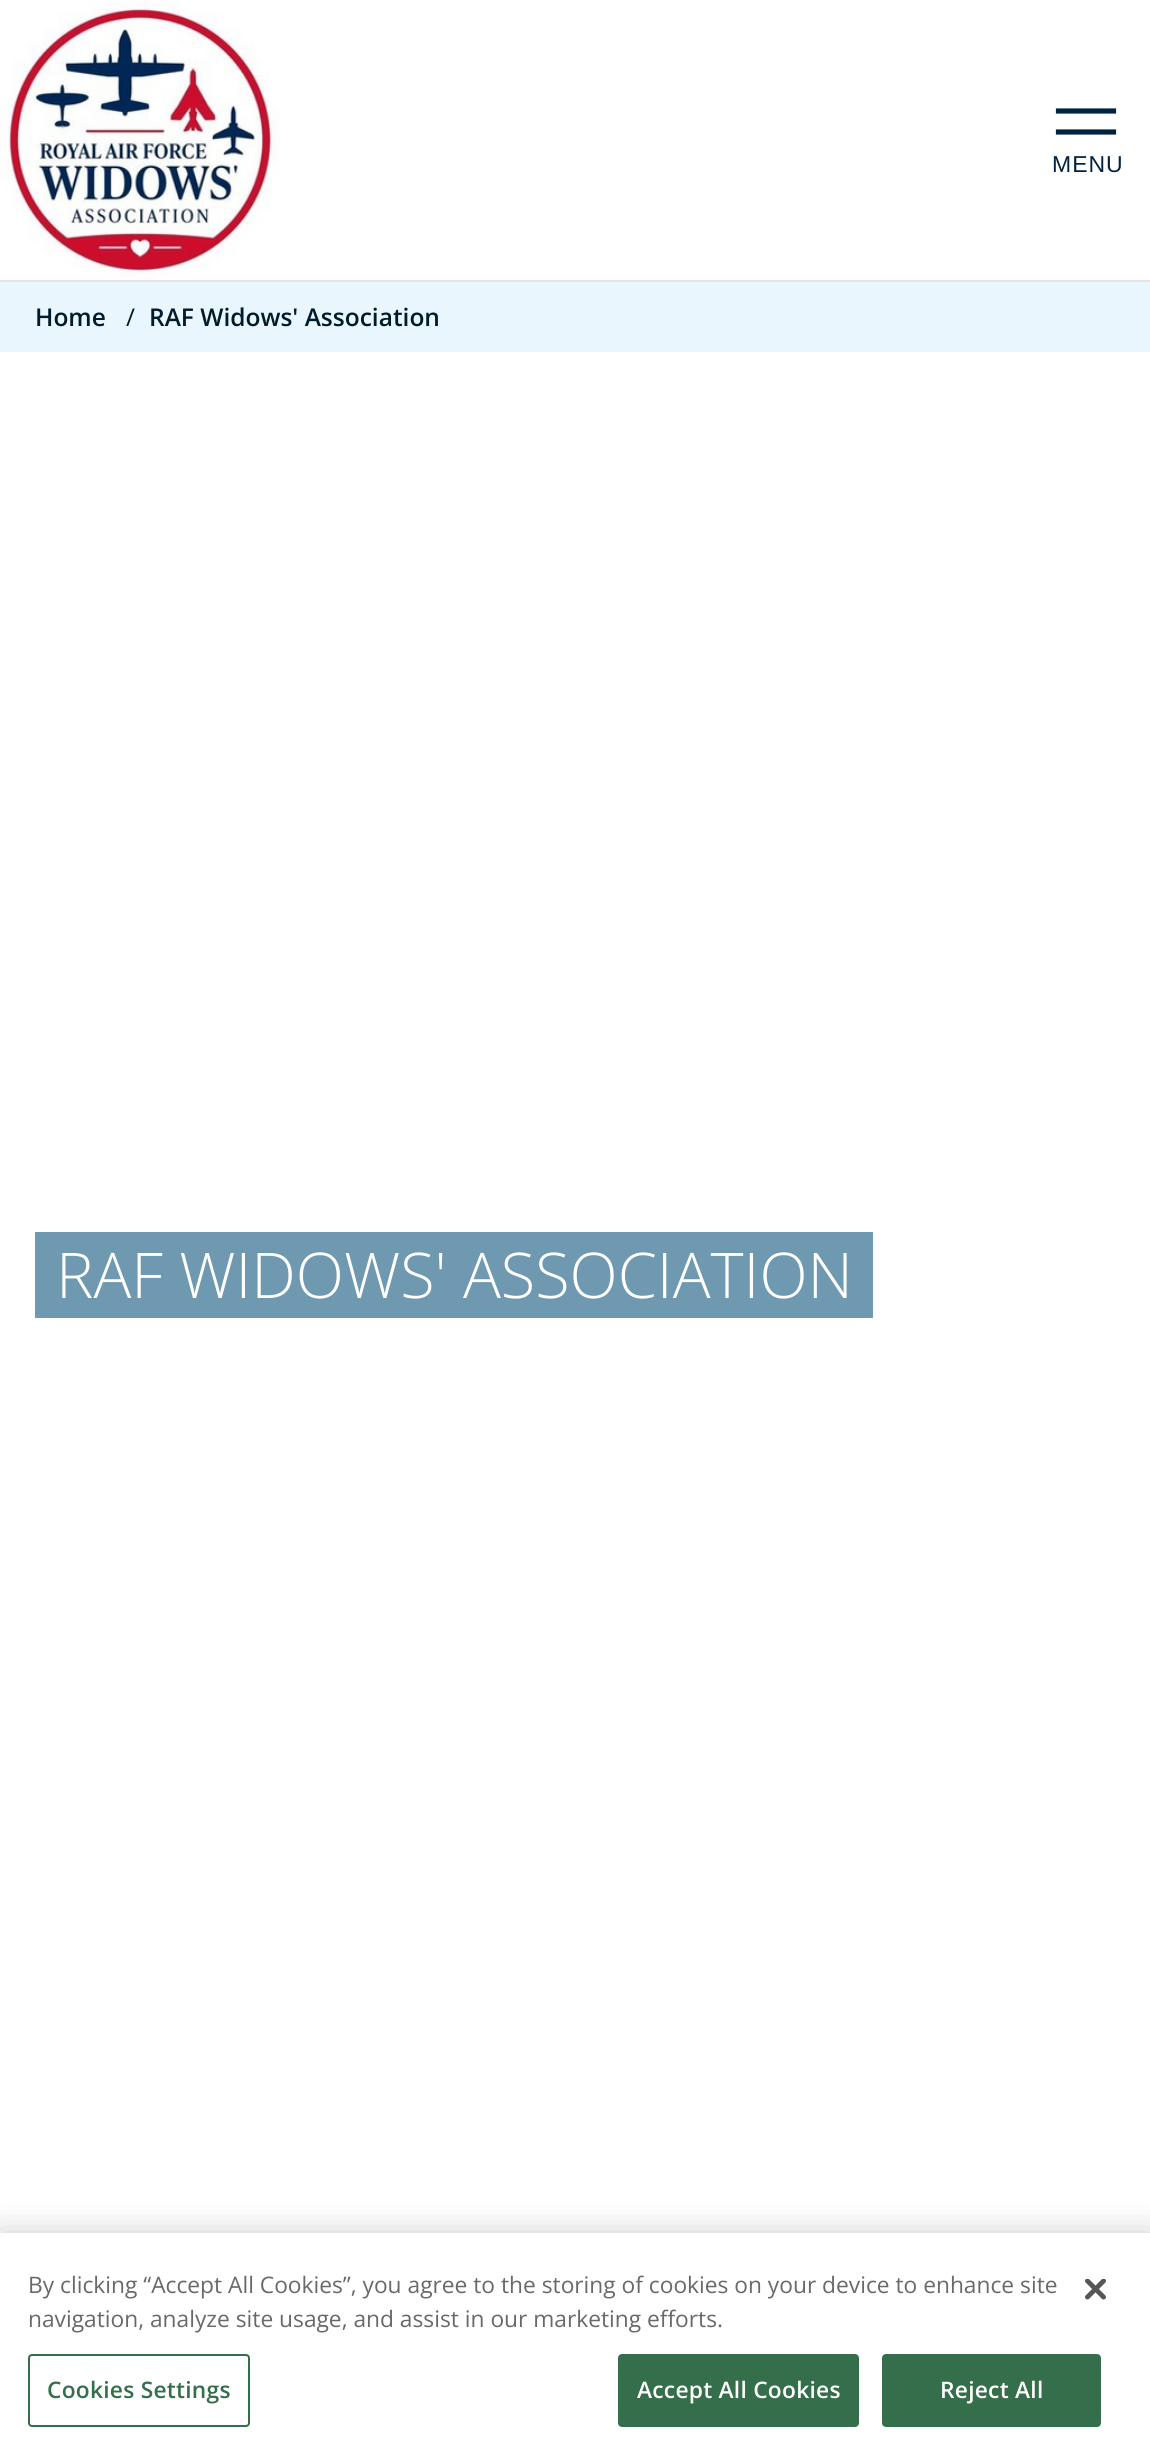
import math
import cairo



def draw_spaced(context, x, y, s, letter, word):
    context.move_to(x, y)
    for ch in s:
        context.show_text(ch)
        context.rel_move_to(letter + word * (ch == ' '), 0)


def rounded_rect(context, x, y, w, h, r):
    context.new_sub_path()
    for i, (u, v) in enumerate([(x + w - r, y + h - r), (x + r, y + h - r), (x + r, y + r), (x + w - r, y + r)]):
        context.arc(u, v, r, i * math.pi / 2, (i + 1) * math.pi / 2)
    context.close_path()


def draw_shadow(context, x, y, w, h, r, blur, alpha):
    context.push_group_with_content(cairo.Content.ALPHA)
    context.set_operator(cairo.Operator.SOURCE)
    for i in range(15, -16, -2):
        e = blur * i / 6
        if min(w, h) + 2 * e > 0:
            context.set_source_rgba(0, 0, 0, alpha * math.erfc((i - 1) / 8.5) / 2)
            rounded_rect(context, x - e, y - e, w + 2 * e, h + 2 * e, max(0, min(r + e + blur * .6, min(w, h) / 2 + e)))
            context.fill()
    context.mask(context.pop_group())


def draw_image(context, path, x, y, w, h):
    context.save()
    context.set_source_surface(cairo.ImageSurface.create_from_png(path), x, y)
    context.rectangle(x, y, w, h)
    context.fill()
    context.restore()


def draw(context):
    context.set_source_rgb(1, 1, 1)
    context.paint()
    context.set_source_rgb(229 / 255, 229 / 255, 229 / 255)
    context.rectangle(0, 280, 1150, 2)
    context.fill()
    draw_image(context, "images/1.png", 0, 0, 280, 280)
    context.new_path()
    context.move_to(1058.5, 111)
    context.line_to(1113.5, 111)
    context.move_to(1058.5, 132)
    context.line_to(1113.5, 132)
    context.set_source_rgb(0, 35 / 255, 65 / 255)
    context.set_line_width(5.2)
    context.set_line_cap(cairo.LineCap.SQUARE)
    context.stroke()
    context.set_source_rgb(234 / 255, 246 / 255, 254 / 255)
    context.rectangle(0, 282, 1150, 70)
    context.fill()
    context.set_source_rgb(110 / 255, 153 / 255, 177 / 255)
    context.rectangle(35, 1232, 838, 86)
    context.fill()
    context.set_source_rgb(0, 0, 0)
    draw_shadow(context, 0, 2233, 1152, 231, 0, 16, 0.2)
    context.set_source_rgb(1, 1, 1)
    context.rectangle(0, 2233, 1150, 231)
    context.fill()
    rounded_rect(context, 29, 2355, 220, 71, 3)
    context.set_source_rgb(52 / 255, 110 / 255, 74 / 255)
    context.set_line_width(2)
    context.set_line_cap(cairo.LineCap.BUTT)
    context.stroke()
    rounded_rect(context, 619, 2355, 239, 71, 3)
    context.fill_preserve()
    context.stroke()
    rounded_rect(context, 883, 2355, 217, 71, 3)
    context.fill_preserve()
    context.stroke()
    draw_image(context, "images/2.png", 1085, 2279, 21, 21)
    context.select_font_face("Liberation Sans")
    context.set_font_size(23)
    context.set_source_rgb(0, 35 / 255, 65 / 255)
    draw_spaced(context, 1052, 172, "MENU", 1, 0)
    context.select_font_face("Open Sans SemiBold")
    context.set_font_size(24.5)
    context.set_source_rgb(0, 28 / 255, 44 / 255)
    context.move_to(35, 326)
    context.show_text("Home")
    context.select_font_face("Open Sans")
    context.move_to(126, 326)
    context.show_text("/")
    context.select_font_face("Open Sans SemiBold")
    context.move_to(149, 326)
    context.show_text("RAF Widows' Association")
    context.select_font_face("Open Sans Light")
    context.set_font_size(63)
    context.set_source_rgb(1, 1, 1)
    context.move_to(56, 1298)
    context.show_text("RAF WIDOWS' ASSOCIATION")
    context.select_font_face("Open Sans")
    context.set_font_size(22.75)
    context.set_source_rgb(105 / 255, 105 / 255, 105 / 255)
    context.move_to(28, 2293)
    context.show_text("By clicking “Accept All Cookies”, you agree to the storing of cookies on your device to enhance site")
    context.move_to(28, 2327)
    context.show_text("navigation, analyze site usage, and assist in our marketing efforts.")
    context.select_font_face("Open Sans SemiBold")
    context.set_source_rgb(52 / 255, 110 / 255, 74 / 255)
    draw_spaced(context, 47, 2398, "Cookies Settings", 0.25, 0)
    context.set_source_rgb(1, 1, 1)
    draw_spaced(context, 637, 2398, "Accept All Cookies", 0.25, 0)
    draw_spaced(context, 940, 2398, "Reject All", 0.25, 0)


surface = cairo.ImageSurface(cairo.Format.RGB24, 1150, 2464)
context = cairo.Context(surface)
options = cairo.FontOptions()
options.set_hint_metrics(cairo.HintMetrics.OFF)
options.set_hint_style(cairo.HintStyle.NONE)
context.set_font_options(options)
context.set_miter_limit(4)
draw(context)
surface.write_to_png("out.png")
